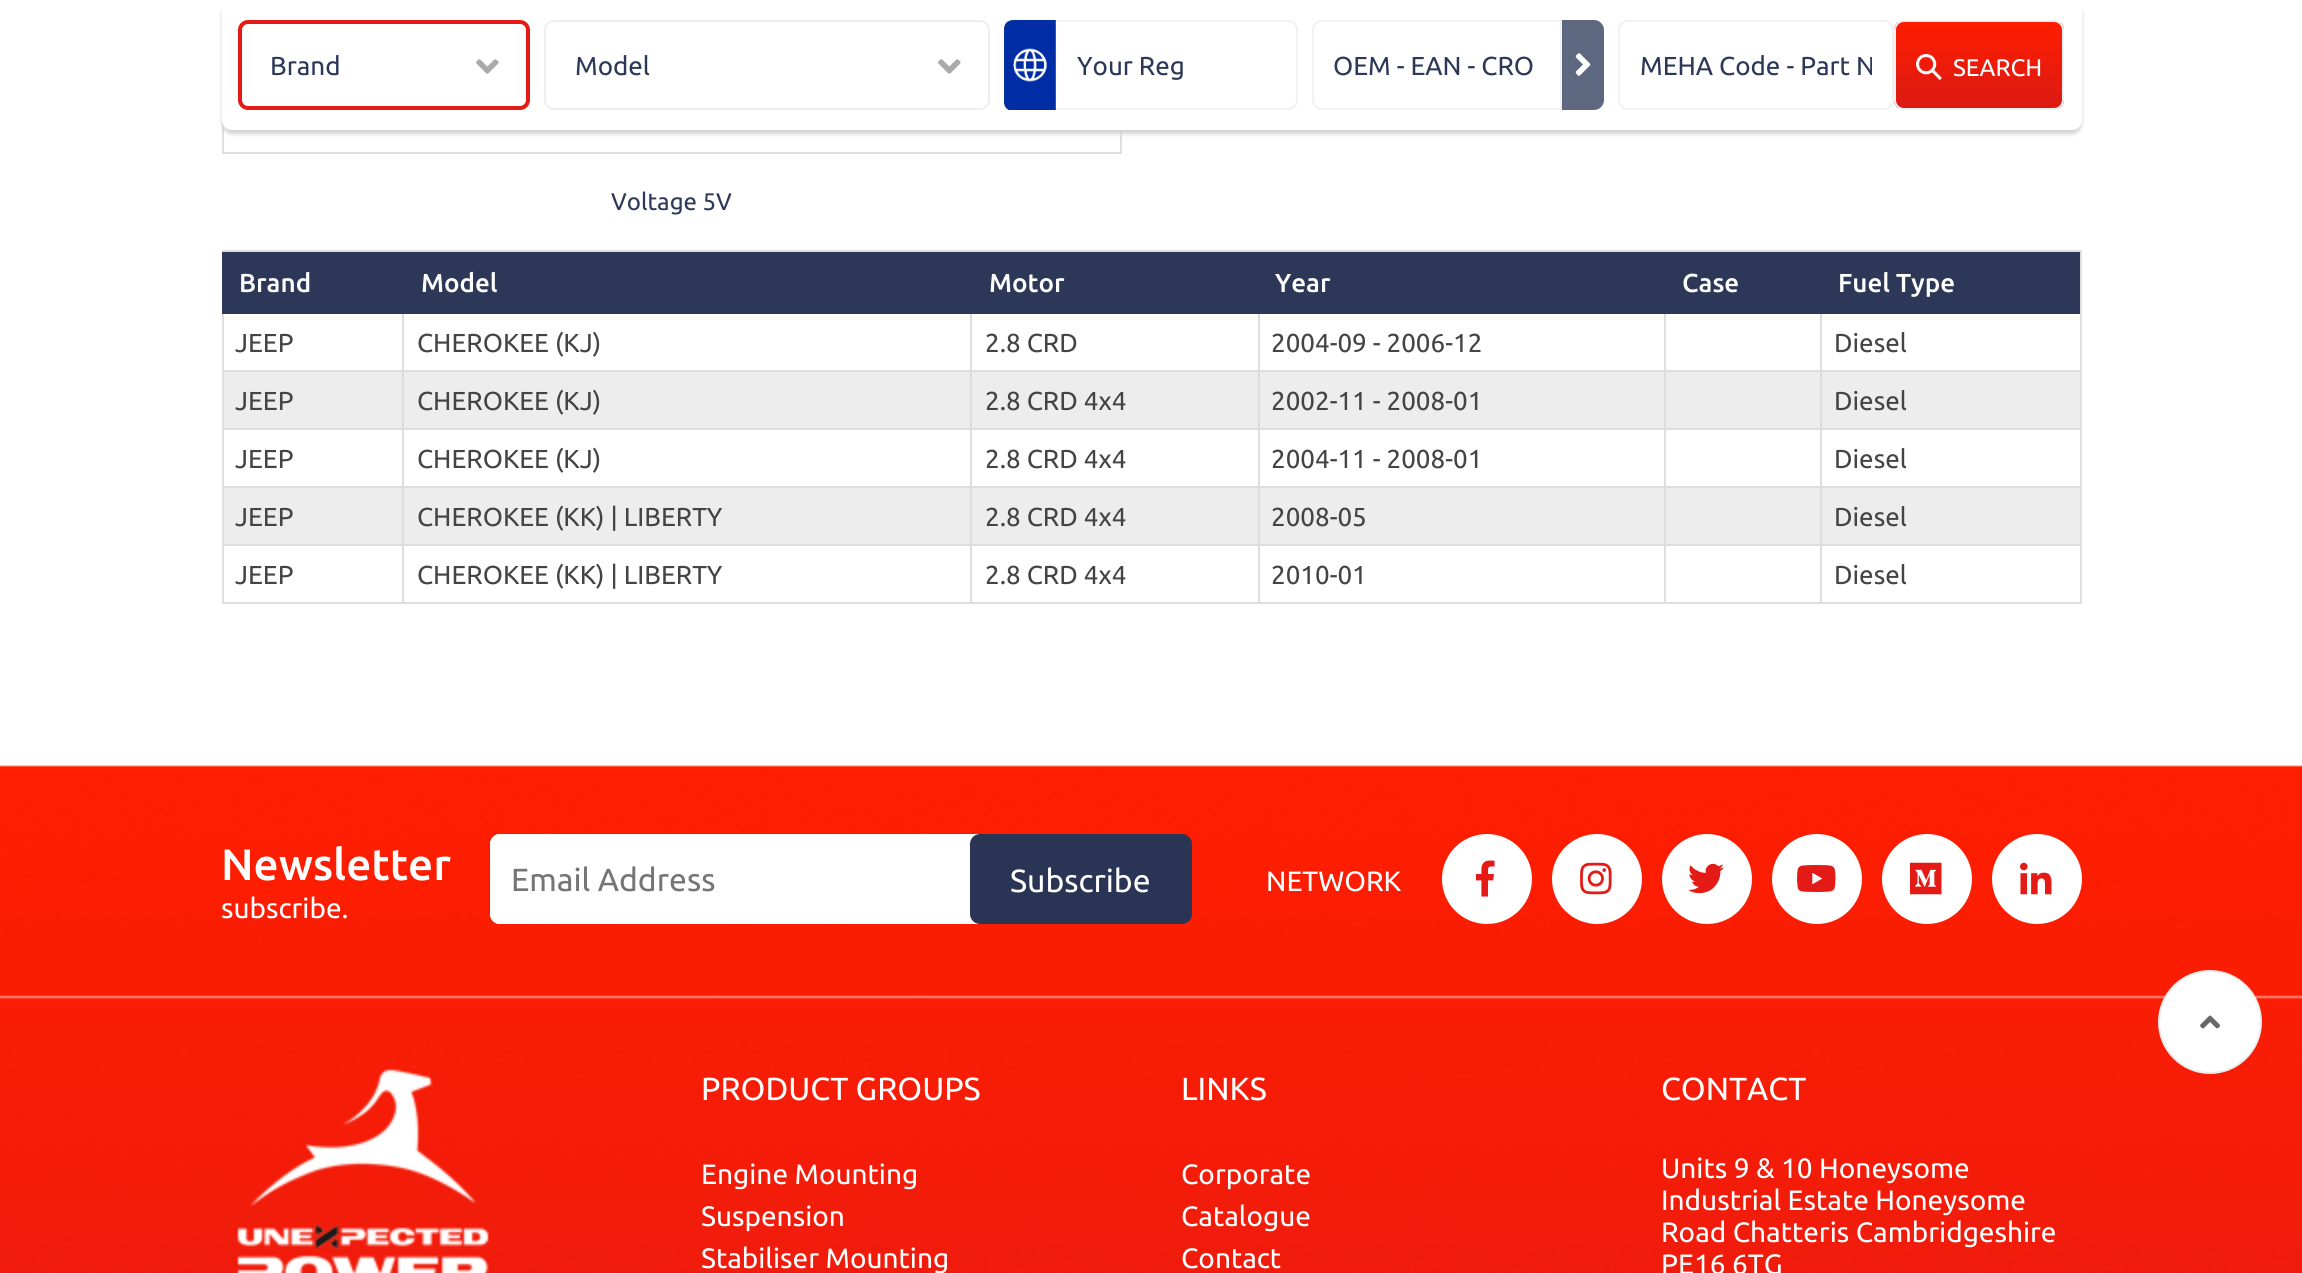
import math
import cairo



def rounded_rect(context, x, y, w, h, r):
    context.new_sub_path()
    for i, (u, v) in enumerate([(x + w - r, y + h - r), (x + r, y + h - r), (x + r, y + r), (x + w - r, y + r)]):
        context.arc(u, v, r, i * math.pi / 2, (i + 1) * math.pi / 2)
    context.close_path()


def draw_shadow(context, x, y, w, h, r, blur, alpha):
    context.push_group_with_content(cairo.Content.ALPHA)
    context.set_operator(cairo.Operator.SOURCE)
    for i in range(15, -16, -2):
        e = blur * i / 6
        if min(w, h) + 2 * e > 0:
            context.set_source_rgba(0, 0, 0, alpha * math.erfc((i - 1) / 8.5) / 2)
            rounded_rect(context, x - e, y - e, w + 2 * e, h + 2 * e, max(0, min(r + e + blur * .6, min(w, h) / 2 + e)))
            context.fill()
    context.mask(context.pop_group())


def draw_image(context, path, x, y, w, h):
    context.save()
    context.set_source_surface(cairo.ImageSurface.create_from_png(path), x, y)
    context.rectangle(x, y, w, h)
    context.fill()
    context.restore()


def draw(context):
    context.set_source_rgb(1, 1, 1)
    context.paint()
    context.rectangle(223, -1, 898, 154)
    context.set_source_rgb(222 / 255, 222 / 255, 222 / 255)
    context.stroke()
    context.set_source_rgb(210 / 255, 210 / 255, 210 / 255)
    draw_shadow(context, 222, 4, 1860, 130, 10, 2, 1)
    context.set_source_rgb(1, 1, 1)
    context.new_path()
    context.move_to(222, 0)
    context.line_to(2082, 0)
    context.line_to(2082, 120)
    context.curve_to(2082, 125.5, 2077.5, 130, 2072, 130)
    context.line_to(232, 130)
    context.curve_to(226.5, 130, 222, 125.5, 222, 120)
    context.close_path()
    context.fill()
    rounded_rect(context, 240, 22, 288, 86, 8)
    context.set_source_rgb(228 / 255, 26 / 255, 22 / 255)
    context.set_line_width(4)
    context.stroke()
    draw_image(context, "images/1.png", 476, 59, 23, 15)
    rounded_rect(context, 545, 21, 444, 88, 9)
    context.set_source_rgb(239 / 255, 239 / 255, 239 / 255)
    context.set_line_width(2)
    context.stroke()
    draw_image(context, "images/1.png", 938, 59, 23, 15)
    rounded_rect(context, 1005, 21, 292, 88, 9)
    context.set_source_rgb(241 / 255, 241 / 255, 241 / 255)
    context.stroke()
    draw_image(context, "images/2.png", 1004, 20, 52, 90)
    context.new_path()
    context.move_to(1322, 21)
    context.line_to(1561, 21)
    context.line_to(1561, 109)
    context.line_to(1322, 109)
    context.curve_to(1317, 109, 1313, 105, 1313, 100)
    context.line_to(1313, 30)
    context.curve_to(1313, 25, 1317, 21, 1322, 21)
    context.close_path()
    context.stroke()
    context.set_source_rgb(93 / 255, 103 / 255, 128 / 255)
    context.new_path()
    context.move_to(1562, 20)
    context.line_to(1594, 20)
    context.curve_to(1599.5, 20, 1604, 24.5, 1604, 30)
    context.line_to(1604, 100)
    context.curve_to(1604, 105.5, 1599.5, 110, 1594, 110)
    context.line_to(1562, 110)
    context.close_path()
    context.fill()
    draw_image(context, "images/3.png", 1575, 53, 16, 23)
    rounded_rect(context, 1619, 21, 274, 88, 9)
    context.set_source_rgb(241 / 255, 241 / 255, 241 / 255)
    context.stroke()
    context.save()
    rounded_rect(context, 1894, 20, 170, 90, 10)
    context.clip()
    gradient = cairo.LinearGradient(1979, 22, 1979, 108)
    gradient.add_color_stop_rgba(0, 254 / 255, 29 / 255, 0, 1)
    gradient.add_color_stop_rgba(1, 219 / 255, 26 / 255, 20 / 255, 1)
    context.set_source(gradient)
    context.rectangle(1894, 22, 170, 86)
    context.fill()
    context.restore()
    rounded_rect(context, 1895, 21, 168, 88, 9)
    context.stroke()
    draw_image(context, "images/4.png", 1916, 54, 26, 26)
    context.set_source_rgb(222 / 255, 222 / 255, 222 / 255)
    context.rectangle(1820, 370, 262, 2)
    context.fill()
    context.set_source_rgb(237 / 255, 237 / 255, 237 / 255)
    context.rectangle(224, 372, 1856, 56)
    context.fill()
    context.set_source_rgb(222 / 255, 222 / 255, 222 / 255)
    context.rectangle(1820, 428, 262, 2)
    context.fill()
    context.rectangle(1820, 486, 262, 2)
    context.fill()
    context.set_source_rgb(237 / 255, 237 / 255, 237 / 255)
    context.rectangle(224, 488, 1856, 56)
    context.fill()
    context.set_source_rgb(222 / 255, 222 / 255, 222 / 255)
    context.rectangle(1820, 544, 262, 2)
    context.fill()
    context.rectangle(2080, 544, 2, 60)
    context.fill()
    context.rectangle(1820, 602, 262, 2)
    context.fill()
    context.rectangle(1820, 544, 2, 60)
    context.fill()
    context.rectangle(1664, 544, 158, 2)
    context.fill()
    context.rectangle(1820, 486, 2, 60)
    context.fill()
    context.rectangle(1664, 486, 158, 2)
    context.fill()
    context.rectangle(1820, 428, 2, 60)
    context.fill()
    context.rectangle(1664, 428, 158, 2)
    context.fill()
    context.rectangle(1820, 370, 2, 60)
    context.fill()
    context.rectangle(1664, 370, 158, 2)
    context.fill()
    context.rectangle(1664, 602, 158, 2)
    context.fill()
    context.rectangle(1664, 544, 2, 60)
    context.fill()
    context.rectangle(1258, 544, 408, 2)
    context.fill()
    context.rectangle(1664, 486, 2, 60)
    context.fill()
    context.rectangle(1258, 486, 408, 2)
    context.fill()
    context.rectangle(1664, 428, 2, 60)
    context.fill()
    context.rectangle(1258, 428, 408, 2)
    context.fill()
    context.rectangle(1664, 370, 2, 60)
    context.fill()
    context.rectangle(1258, 370, 408, 2)
    context.fill()
    context.rectangle(1258, 602, 408, 2)
    context.fill()
    context.rectangle(1258, 544, 2, 60)
    context.fill()
    context.rectangle(970, 544, 290, 2)
    context.fill()
    context.rectangle(1258, 486, 2, 60)
    context.fill()
    context.rectangle(970, 486, 290, 2)
    context.fill()
    context.rectangle(1258, 428, 2, 60)
    context.fill()
    context.rectangle(970, 428, 290, 2)
    context.fill()
    context.rectangle(1258, 370, 2, 60)
    context.fill()
    context.rectangle(970, 370, 290, 2)
    context.fill()
    context.rectangle(970, 602, 290, 2)
    context.fill()
    context.rectangle(970, 544, 2, 60)
    context.fill()
    context.rectangle(402, 544, 570, 2)
    context.fill()
    context.rectangle(970, 486, 2, 60)
    context.fill()
    context.rectangle(402, 486, 570, 2)
    context.fill()
    context.rectangle(970, 428, 2, 60)
    context.fill()
    context.rectangle(402, 428, 570, 2)
    context.fill()
    context.rectangle(970, 370, 2, 60)
    context.fill()
    context.rectangle(402, 370, 570, 2)
    context.fill()
    context.rectangle(402, 602, 570, 2)
    context.fill()
    context.rectangle(402, 544, 2, 60)
    context.fill()
    context.rectangle(222, 544, 182, 2)
    context.fill()
    context.rectangle(402, 486, 2, 60)
    context.fill()
    context.rectangle(222, 486, 182, 2)
    context.fill()
    context.rectangle(402, 428, 2, 60)
    context.fill()
    context.rectangle(222, 428, 182, 2)
    context.fill()
    context.rectangle(402, 370, 2, 60)
    context.fill()
    context.rectangle(222, 370, 182, 2)
    context.fill()
    context.rectangle(402, 312, 2, 60)
    context.fill()
    context.rectangle(970, 312, 2, 60)
    context.fill()
    context.rectangle(1258, 312, 2, 60)
    context.fill()
    context.rectangle(1664, 312, 2, 60)
    context.fill()
    context.rectangle(1820, 312, 2, 60)
    context.fill()
    context.rectangle(222, 602, 182, 2)
    context.fill()
    context.rectangle(222, 544, 2, 60)
    context.fill()
    context.rectangle(222, 486, 2, 60)
    context.fill()
    context.rectangle(222, 428, 2, 60)
    context.fill()
    context.rectangle(222, 312, 2, 118)
    context.fill()
    context.set_source_rgb(45 / 255, 56 / 255, 88 / 255)
    context.rectangle(222, 252, 1858, 62)
    context.fill()
    context.set_source_rgb(222 / 255, 222 / 255, 222 / 255)
    context.rectangle(222, 250, 1860, 2)
    context.fill()
    context.rectangle(2080, 486, 2, 60)
    context.fill()
    context.rectangle(2080, 428, 2, 60)
    context.fill()
    context.rectangle(2080, 312, 2, 118)
    context.fill()
    context.rectangle(2080, 250, 2, 64)
    context.fill()
    draw_image(context, "images/5.png", 0, 764, 2302, 509)
    context.set_source_rgb(1, 1, 1)
    rounded_rect(context, 490, 834, 690, 90, 10)
    context.fill()
    rounded_rect(context, 490, 834, 480, 90, 10)
    context.fill()
    context.set_source_rgb(42 / 255, 53 / 255, 86 / 255)
    rounded_rect(context, 971, 835, 220, 88, 9)
    context.fill_preserve()
    context.stroke()
    context.set_source_rgb(1, 1, 1)
    context.arc(1487, 879, 45, 0, 2 * math.pi)
    context.fill()
    draw_image(context, "images/6.png", 1476, 860, 19, 37)
    context.arc(1597, 879, 45, 0, 2 * math.pi)
    context.fill()
    draw_image(context, "images/7.png", 1580, 862, 32, 33)
    context.arc(1707, 879, 45, 0, 2 * math.pi)
    context.fill()
    draw_image(context, "images/8.png", 1688, 863, 36, 31)
    context.arc(1817, 879, 45, 0, 2 * math.pi)
    context.fill()
    draw_image(context, "images/9.png", 1797, 865, 39, 27)
    context.arc(1927, 879, 45, 0, 2 * math.pi)
    context.fill()
    draw_image(context, "images/10.png", 1910, 862, 32, 33)
    context.arc(2037, 879, 45, 0, 2 * math.pi)
    context.fill()
    draw_image(context, "images/11.png", 2020, 862, 32, 33)
    draw_image(context, "images/12.png", 237, 1069, 252, 204)
    context.arc(2210, 1022, 51, 0, 2 * math.pi)
    context.fill_preserve()
    context.set_source_rgb(236 / 255, 236 / 255, 236 / 255)
    context.stroke()
    draw_image(context, "images/13.png", 2200, 1015, 20, 14)
    context.select_font_face("Ubuntu")
    context.set_font_size(26)
    context.set_source_rgb(45 / 255, 56 / 255, 88 / 255)
    context.move_to(270, 75)
    context.show_text("Brand")
    context.move_to(575, 75)
    context.show_text("Model")
    context.move_to(1077, 75)
    context.show_text("Your Reg")
    context.move_to(1333, 75)
    context.show_text("OEM - EAN - CRO")
    context.save()
    context.rectangle(1640, 52, 232, 28)
    context.clip()
    context.move_to(1640, 75)
    context.show_text("MEHA Code - Part N")
    context.restore()
    context.set_font_size(24)
    context.set_source_rgb(1, 1, 1)
    context.move_to(1953, 76)
    context.show_text("SEARCH")
    context.set_source_rgb(45 / 255, 56 / 255, 88 / 255)
    context.move_to(611, 210)
    context.show_text("Voltage 5V")
    context.select_font_face("Ubuntu Medium")
    context.set_font_size(26)
    context.set_source_rgb(1, 1, 1)
    context.move_to(239, 292)
    context.show_text("Brand")
    context.move_to(421, 292)
    context.show_text("Model")
    context.move_to(989, 292)
    context.show_text("Motor")
    context.move_to(1275, 292)
    context.show_text("Year")
    context.move_to(1682, 292)
    context.show_text("Case")
    context.move_to(1838, 292)
    context.show_text("Fuel Type")
    context.select_font_face("Ubuntu")
    context.set_source_rgb(68 / 255, 68 / 255, 68 / 255)
    context.move_to(235, 352)
    context.show_text("JEEP")
    context.move_to(417, 352)
    context.show_text("CHEROKEE (KJ)")
    context.move_to(985, 352)
    context.show_text("2.8 CRD")
    context.move_to(1271, 352)
    context.show_text("2004-09 - 2006-12")
    context.move_to(1834, 352)
    context.show_text("Diesel")
    context.move_to(235, 410)
    context.show_text("JEEP")
    context.move_to(417, 410)
    context.show_text("CHEROKEE (KJ)")
    context.move_to(985, 410)
    context.show_text("2.8 CRD 4x4")
    context.move_to(1271, 410)
    context.show_text("2002-11 - 2008-01")
    context.move_to(1834, 410)
    context.show_text("Diesel")
    context.move_to(235, 468)
    context.show_text("JEEP")
    context.move_to(417, 468)
    context.show_text("CHEROKEE (KJ)")
    context.move_to(985, 468)
    context.show_text("2.8 CRD 4x4")
    context.move_to(1271, 468)
    context.show_text("2004-11 - 2008-01")
    context.move_to(1834, 468)
    context.show_text("Diesel")
    context.move_to(235, 526)
    context.show_text("JEEP")
    context.move_to(417, 526)
    context.show_text("CHEROKEE (KK) | LIBERTY")
    context.move_to(985, 526)
    context.show_text("2.8 CRD 4x4")
    context.move_to(1271, 526)
    context.show_text("2008-05")
    context.move_to(1834, 526)
    context.show_text("Diesel")
    context.move_to(235, 584)
    context.show_text("JEEP")
    context.move_to(417, 584)
    context.show_text("CHEROKEE (KK) | LIBERTY")
    context.move_to(985, 584)
    context.show_text("2.8 CRD 4x4")
    context.move_to(1271, 584)
    context.show_text("2010-01")
    context.move_to(1834, 584)
    context.show_text("Diesel")
    context.select_font_face("Ubuntu Medium")
    context.set_font_size(44)
    context.set_source_rgb(1, 1, 1)
    context.move_to(221, 880)
    context.show_text("Newsletter")
    context.select_font_face("Ubuntu")
    context.set_font_size(28)
    context.move_to(221, 918)
    context.show_text("subscribe.")
    context.set_font_size(32)
    context.set_source_rgb(117 / 255, 117 / 255, 117 / 255)
    context.move_to(511, 891)
    context.show_text("Email Address")
    context.set_source_rgb(1, 1, 1)
    context.move_to(1010, 892)
    context.show_text("Subscribe")
    context.set_font_size(28)
    context.move_to(1266, 891)
    context.show_text("NETWORK")
    context.set_font_size(32)
    context.move_to(701, 1100)
    context.show_text("PRODUCT GROUPS")
    context.set_font_size(28)
    context.move_to(701, 1184)
    context.show_text("Engine Mounting")
    context.move_to(701, 1226)
    context.show_text("Suspension")
    context.move_to(701, 1268)
    context.show_text("Stabiliser Mounting")
    context.set_font_size(32)
    context.move_to(1181, 1100)
    context.show_text("LINKS")
    context.set_font_size(28)
    context.move_to(1181, 1184)
    context.show_text("Corporate")
    context.move_to(1181, 1226)
    context.show_text("Catalogue")
    context.move_to(1181, 1268)
    context.show_text("Contact")
    context.set_font_size(32)
    context.move_to(1661, 1100)
    context.show_text("CONTACT")
    context.set_font_size(28)
    context.move_to(1661, 1178)
    context.show_text("Units 9 & 10 Honeysome")
    context.move_to(1661, 1210)
    context.show_text("Industrial Estate Honeysome")
    context.move_to(1661, 1242)
    context.show_text("Road Chatteris Cambridgeshire")
    context.move_to(1661, 1274)
    context.show_text("PE16 6TG")


surface = cairo.ImageSurface(cairo.Format.RGB24, 2302, 1273)
context = cairo.Context(surface)
options = cairo.FontOptions()
options.set_hint_metrics(cairo.HintMetrics.OFF)
options.set_hint_style(cairo.HintStyle.NONE)
context.set_font_options(options)
context.set_miter_limit(4)
draw(context)
surface.write_to_png("out.png")
